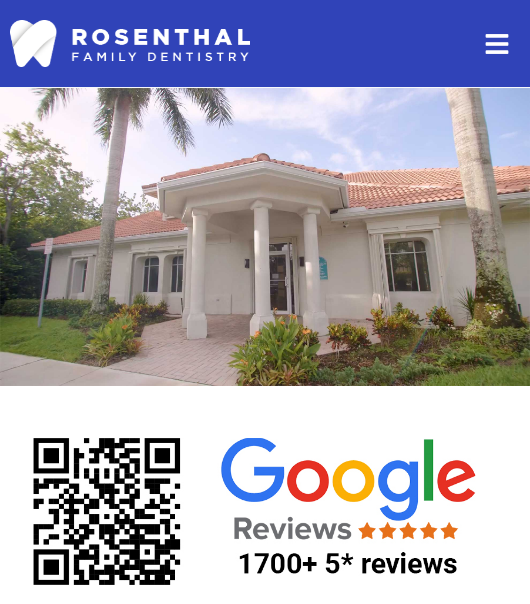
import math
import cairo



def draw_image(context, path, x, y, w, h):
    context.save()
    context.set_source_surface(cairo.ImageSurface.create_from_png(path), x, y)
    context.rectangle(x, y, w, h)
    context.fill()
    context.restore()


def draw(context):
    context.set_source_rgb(1, 1, 1)
    context.paint()
    context.set_source_rgb(48 / 255, 67 / 255, 184 / 255)
    context.rectangle(0, 0, 530, 87)
    context.fill()
    context.set_source_rgb(247 / 255, 249 / 255, 251 / 255)
    context.rectangle(0, 87, 530, 1)
    context.fill()
    draw_image(context, "images/1.png", 10, 20, 240, 47)
    draw_image(context, "images/2.png", 485, 34, 24, 20)
    draw_image(context, "images/3.png", 0, 88, 530, 298)
    draw_image(context, "images/4.png", 33, 438, 443, 147)


surface = cairo.ImageSurface(cairo.Format.RGB24, 530, 604)
context = cairo.Context(surface)
options = cairo.FontOptions()
options.set_hint_metrics(cairo.HintMetrics.OFF)
options.set_hint_style(cairo.HintStyle.NONE)
context.set_font_options(options)
context.set_miter_limit(4)
draw(context)
surface.write_to_png("out.png")
